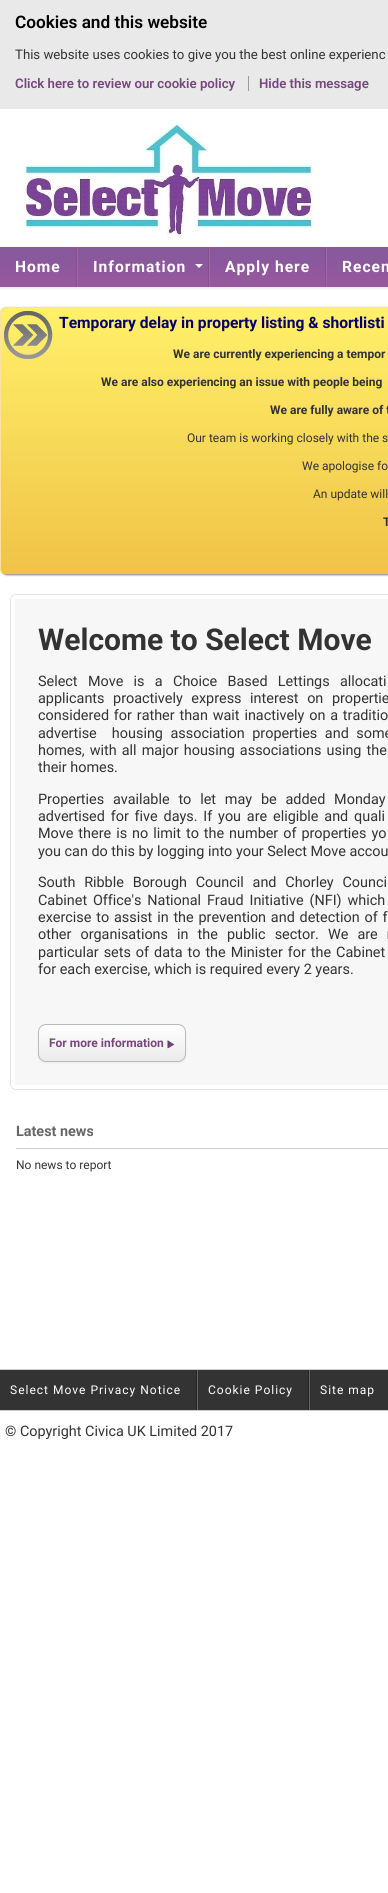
import math
import cairo



def draw_spaced(context, x, y, s, letter, word):
    context.move_to(x, y)
    for ch in s:
        context.show_text(ch)
        context.rel_move_to(letter + word * (ch == ' '), 0)


def rounded_rect(context, x, y, w, h, r):
    context.new_sub_path()
    for i, (u, v) in enumerate([(x + w - r, y + h - r), (x + r, y + h - r), (x + r, y + r), (x + w - r, y + r)]):
        context.arc(u, v, r, i * math.pi / 2, (i + 1) * math.pi / 2)
    context.close_path()


def draw_shadow(context, x, y, w, h, r, blur, alpha):
    context.push_group_with_content(cairo.Content.ALPHA)
    context.set_operator(cairo.Operator.SOURCE)
    for i in range(15, -16, -2):
        e = blur * i / 6
        if min(w, h) + 2 * e > 0:
            context.set_source_rgba(0, 0, 0, alpha * math.erfc((i - 1) / 8.5) / 2)
            rounded_rect(context, x - e, y - e, w + 2 * e, h + 2 * e, max(0, min(r + e + blur * .6, min(w, h) / 2 + e)))
            context.fill()
    context.mask(context.pop_group())


def draw_image(context, path, x, y, w, h):
    context.save()
    context.set_source_surface(cairo.ImageSurface.create_from_png(path), x, y)
    context.rectangle(x, y, w, h)
    context.fill()
    context.restore()


def draw(context):
    context.set_source_rgb(1, 1, 1)
    context.paint()
    context.set_source_rgb(233 / 255, 233 / 255, 233 / 255)
    context.rectangle(0, 0, 388, 109)
    context.fill()
    context.set_source_rgb(153 / 255, 153 / 255, 153 / 255)
    context.rectangle(248, 76, 1, 15)
    context.fill()
    draw_image(context, "images/1.png", 20, 120, 293, 119)
    context.save()
    context.rectangle(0, 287, 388, 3)
    context.clip()
    context.set_source_rgb(0, 0, 0)
    draw_shadow(context, 0, 242, 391, 47, 0, 1, 0.07)
    context.restore()
    gradient = cairo.LinearGradient(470, 247, 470, 287)
    gradient.add_color_stop_rgba(0, 133 / 255, 88 / 255, 157 / 255, 1)
    gradient.add_color_stop_rgba(1, 151 / 255, 88 / 255, 157 / 255, 1)
    context.set_source(gradient)
    context.rectangle(0, 247, 388, 40)
    context.fill()
    context.set_source_rgb(135 / 255, 79 / 255, 141 / 255)
    context.rectangle(76, 247, 1, 40)
    context.fill()
    context.rectangle(208, 247, 1, 40)
    context.fill()
    context.set_source_rgb(163 / 255, 102 / 255, 169 / 255)
    context.rectangle(77, 247, 1, 40)
    context.fill()
    context.set_source_rgb(1, 1, 1)
    context.new_path()
    context.move_to(195, 264)
    context.line_to(203, 264)
    context.line_to(199, 268)
    context.close_path()
    context.fill()
    context.set_source_rgb(135 / 255, 79 / 255, 141 / 255)
    context.rectangle(325, 247, 1, 40)
    context.fill()
    context.set_source_rgb(163 / 255, 102 / 255, 169 / 255)
    context.rectangle(209, 247, 1, 40)
    context.fill()
    context.rectangle(326, 247, 1, 40)
    context.fill()
    context.set_source_rgb(0, 0, 0)
    draw_shadow(context, 1, 308, 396, 267, 6, 1, 0.5)
    context.save()
    rounded_rect(context, 0, 307, 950, 267, 6)
    context.clip()
    gradient = cairo.LinearGradient(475, 308, 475, 573)
    gradient.add_color_stop_rgba(0, 1, 240 / 255, 106 / 255, 1)
    gradient.add_color_stop_rgba(1, 240 / 255, 195 / 255, 71 / 255, 1)
    context.set_source(gradient)
    context.rectangle(0, 308, 388, 265)
    context.fill()
    context.restore()
    context.new_path()
    context.move_to(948, 309)
    context.curve_to(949, 310, 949.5, 311.5, 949.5, 313)
    context.line_to(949.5, 568)
    context.curve_to(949.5, 569.5, 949, 571, 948, 572)
    context.curve_to(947, 573, 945.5, 573.5, 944, 573.5)
    context.line_to(6, 573.5)
    context.curve_to(4.5, 573.5, 3, 573, 2, 572)
    context.set_source_rgb(240 / 255, 195 / 255, 71 / 255)
    context.set_line_width(1)
    context.stroke()
    context.new_path()
    context.move_to(2, 572)
    context.curve_to(1, 571, 0.5, 569.5, 0.5, 568)
    context.line_to(0.5, 313)
    context.curve_to(0.5, 311.5, 1, 310, 2, 309)
    context.curve_to(3, 308, 4.5, 307.5, 6, 307.5)
    context.line_to(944, 307.5)
    context.curve_to(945.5, 307.5, 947, 308, 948, 309)
    context.set_source_rgb(248 / 255, 226 / 255, 165 / 255)
    context.stroke()
    draw_image(context, "images/2.png", 4, 311, 49, 48)
    rounded_rect(context, 10.5, 594.5, 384, 495, 5.5)
    context.set_source_rgb(229 / 255, 229 / 255, 229 / 255)
    context.stroke()
    context.set_source_rgb(247 / 255, 247 / 255, 247 / 255)
    context.rectangle(15, 599, 373, 486)
    context.fill()
    context.set_source_rgb(0, 0, 0)
    draw_shadow(context, 38, 1025, 148, 38, 8, 1, 0.05)
    context.save()
    rounded_rect(context, 38, 1024, 148, 38, 8)
    context.clip()
    gradient = cairo.LinearGradient(112, 1025, 112, 1061)
    gradient.add_color_stop_rgba(0, 1, 1, 1, 1)
    gradient.add_color_stop_rgba(1, 235 / 255, 235 / 255, 235 / 255, 1)
    context.set_source(gradient)
    context.rectangle(38, 1025, 148, 36)
    context.fill()
    context.restore()
    rounded_rect(context, 38.5, 1024.5, 147, 37, 7.5)
    context.set_source_rgb(187 / 255, 187 / 255, 187 / 255)
    context.stroke()
    context.set_source_rgb(119 / 255, 70 / 255, 124 / 255)
    context.rectangle(167, 1040, 8, 8)
    context.fill()
    draw_image(context, "images/3.png", 167, 1040, 8, 9)
    context.set_source_rgb(204 / 255, 204 / 255, 204 / 255)
    context.rectangle(16, 1148, 372, 1)
    context.fill()
    context.rectangle(0, 1369, 388, 1)
    context.fill()
    context.rectangle(0, 1410, 388, 1)
    context.fill()
    context.set_source_rgb(51 / 255, 51 / 255, 51 / 255)
    context.rectangle(0, 1370, 388, 40)
    context.fill()
    context.set_source_rgb(38 / 255, 38 / 255, 38 / 255)
    context.rectangle(196, 1370, 1, 40)
    context.fill()
    context.rectangle(308, 1370, 1, 40)
    context.fill()
    context.set_source_rgb(102 / 255, 102 / 255, 102 / 255)
    context.rectangle(197, 1370, 1, 40)
    context.fill()
    context.rectangle(309, 1370, 1, 40)
    context.fill()
    context.select_font_face("Roboto SemiBold")
    context.set_font_size(17.2)
    context.set_source_rgb(0, 0, 0)
    context.move_to(15, 28)
    context.show_text("Cookies and this website")
    context.select_font_face("Roboto")
    context.set_font_size(13.2)
    context.set_source_rgb(51 / 255, 51 / 255, 51 / 255)
    context.move_to(15, 59)
    context.show_text("This website uses cookies to give you the best online experienc")
    context.select_font_face("Roboto SemiBold")
    context.set_source_rgb(119 / 255, 70 / 255, 124 / 255)
    context.move_to(15, 88)
    context.show_text("Click here to review our cookie policy")
    context.move_to(259, 88)
    context.show_text("Hide this message")
    context.select_font_face("Roboto", cairo.FontSlant.NORMAL, cairo.FontWeight.BOLD)
    context.set_font_size(15.6)
    context.set_source_rgb(1, 1, 1)
    draw_spaced(context, 15, 272, "Home", 1, 0)
    draw_spaced(context, 93, 272, "Information", 1, 0)
    draw_spaced(context, 225, 272, "Apply here", 1, 0)
    draw_spaced(context, 342, 272, "Recen", 1, 0)
    context.set_source_rgb(4 / 255, 0, 103 / 255)
    context.move_to(59, 328)
    context.show_text("Temporary delay in property listing & shortlisti")
    context.set_font_size(12)
    context.set_source_rgb(51 / 255, 51 / 255, 51 / 255)
    context.move_to(173, 358)
    context.show_text("We are currently experiencing a tempor")
    context.move_to(101, 386)
    context.show_text("We are also experiencing an issue with people being")
    context.move_to(270, 414)
    context.show_text("We are fully aware of t")
    context.select_font_face("Roboto")
    context.move_to(187, 442)
    context.show_text("Our team is working closely with the s")
    context.move_to(302, 470)
    context.show_text("We apologise fo")
    context.move_to(313, 498)
    context.show_text("An update will")
    context.select_font_face("Roboto", cairo.FontSlant.NORMAL, cairo.FontWeight.BOLD)
    context.move_to(383, 526)
    context.show_text("T")
    context.set_font_size(30)
    context.move_to(38, 650)
    context.show_text("Welcome to Select Move")
    context.select_font_face("Roboto")
    context.set_font_size(14.4)
    draw_spaced(context, 38, 686, "Select Move is a Choice Based Lettings allocati", 0, 6.75)
    draw_spaced(context, 38, 703, "applicants proactively express interest on propertie", 0, 5)
    draw_spaced(context, 38, 720, "considered for rather than wait inactively on a traditio", 0, 1.25)
    draw_spaced(context, 38, 738, "advertise  housing association properties and some", 0, 4)
    draw_spaced(context, 38, 755, "homes, with all major housing associations using the", 0, 1.5)
    context.move_to(38, 772)
    context.show_text("their homes.")
    draw_spaced(context, 38, 804, "Properties available to let may be added Monday", 0, 5.25)
    draw_spaced(context, 38, 821, "advertised for five days. If you are eligible and quali", 0, 2.25)
    draw_spaced(context, 38, 838, "Move there is no limit to the number of properties yo", 0, 1.4)
    context.move_to(38, 856)
    context.show_text("you can do this by logging into your Select Move accou")
    draw_spaced(context, 38, 887, "South Ribble Borough Council and Chorley Counci", 0, 5.25)
    draw_spaced(context, 38, 905, "Cabinet Office's National Fraud Initiative (NFI) which", 0, 2.25)
    draw_spaced(context, 38, 922, "exercise to assist in the prevention and detection of f", 0, 1.25)
    draw_spaced(context, 38, 939, "other organisations in the public sector. We are r", 0, 5.5)
    draw_spaced(context, 38, 957, "particular sets of data to the Minister for the Cabinet", 0, 1.4)
    context.move_to(38, 974)
    context.show_text("for each exercise, which is required every 2 years.")
    context.select_font_face("Roboto", cairo.FontSlant.NORMAL, cairo.FontWeight.BOLD)
    context.set_font_size(12)
    context.set_source_rgb(119 / 255, 70 / 255, 124 / 255)
    context.move_to(49, 1047)
    context.show_text("For more information")
    context.set_font_size(14.4)
    context.set_source_rgb(102 / 255, 102 / 255, 102 / 255)
    context.move_to(16, 1136)
    context.show_text("Latest news")
    context.select_font_face("Roboto")
    context.set_font_size(12)
    context.set_source_rgb(51 / 255, 51 / 255, 51 / 255)
    context.move_to(16, 1169)
    context.show_text("No news to report")
    context.set_source_rgb(1, 1, 1)
    draw_spaced(context, 10, 1394, "Select Move Privacy Notice", 1, 0)
    draw_spaced(context, 208, 1394, "Cookie Policy", 1, 0)
    draw_spaced(context, 320, 1394, "Site map", 1, 0)
    context.set_font_size(14.4)
    context.set_source_rgb(51 / 255, 51 / 255, 51 / 255)
    context.move_to(5, 1436)
    context.show_text("© Copyright Civica UK Limited 2017")


surface = cairo.ImageSurface(cairo.Format.RGB24, 388, 1893)
context = cairo.Context(surface)
options = cairo.FontOptions()
options.set_hint_metrics(cairo.HintMetrics.OFF)
options.set_hint_style(cairo.HintStyle.NONE)
context.set_font_options(options)
context.set_miter_limit(4)
draw(context)
surface.write_to_png("out.png")
